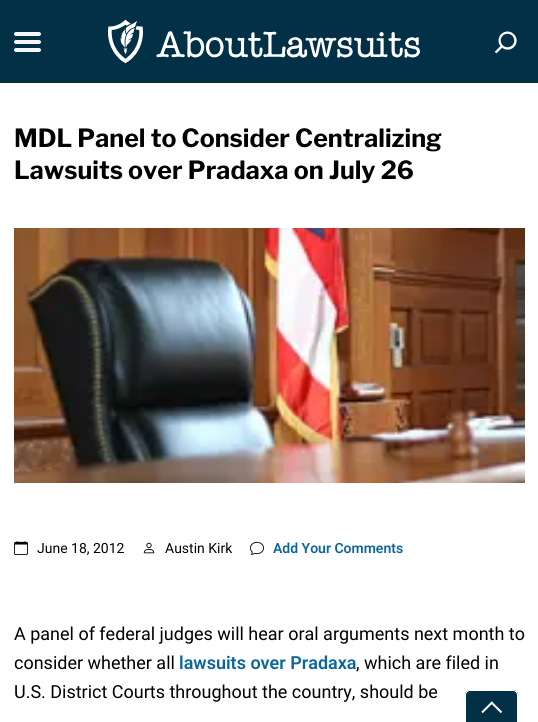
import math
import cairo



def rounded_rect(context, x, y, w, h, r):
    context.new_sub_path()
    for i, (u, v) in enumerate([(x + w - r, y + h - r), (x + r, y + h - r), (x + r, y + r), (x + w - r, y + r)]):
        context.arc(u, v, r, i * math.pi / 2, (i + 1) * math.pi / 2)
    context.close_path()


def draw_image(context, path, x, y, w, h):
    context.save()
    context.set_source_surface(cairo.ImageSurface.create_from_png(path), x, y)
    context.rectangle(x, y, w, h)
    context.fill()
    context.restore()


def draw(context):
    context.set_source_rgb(1, 1, 1)
    context.paint()
    context.set_source_rgb(2 / 255, 48 / 255, 71 / 255)
    context.rectangle(0, 0, 538, 83)
    context.fill()
    context.set_source_rgb(244 / 255, 246 / 255, 247 / 255)
    rounded_rect(context, 14, 32, 27, 4, 2)
    context.fill()
    rounded_rect(context, 14, 40, 27, 4, 2)
    context.fill()
    rounded_rect(context, 14, 48, 27, 4, 2)
    context.fill()
    draw_image(context, "images/1.png", 108, 19, 312, 45)
    draw_image(context, "images/2.png", 494, 31, 23, 23)
    draw_image(context, "images/3.png", 14, 228, 511, 255)
    draw_image(context, "images/4.png", 14, 541, 14, 14)
    draw_image(context, "images/5.png", 143, 542, 12, 12)
    draw_image(context, "images/6.png", 250, 541, 14, 14)
    context.set_source_rgb(2 / 255, 48 / 255, 71 / 255)
    context.new_path()
    context.move_to(470, 690)
    context.line_to(513, 690)
    context.curve_to(516, 690, 518, 692, 518, 695)
    context.line_to(518, 722)
    context.line_to(465, 722)
    context.line_to(465, 695)
    context.curve_to(465, 692, 467, 690, 470, 690)
    context.close_path()
    context.fill()
    context.set_source_rgb(1, 1, 1)
    context.set_fill_rule(cairo.FillRule.EVEN_ODD)
    context.new_path()
    context.move_to(470, 690)
    context.line_to(513, 690)
    context.curve_to(516, 690, 518, 692, 518, 695)
    context.line_to(518, 722)
    context.line_to(465, 722)
    context.line_to(465, 695)
    context.curve_to(465, 692, 467, 690, 470, 690)
    context.close_path()
    context.move_to(470, 691)
    context.line_to(513, 691)
    context.curve_to(515, 691, 517, 693, 517, 695)
    context.line_to(517, 722)
    context.line_to(466, 722)
    context.line_to(466, 695)
    context.curve_to(466, 693, 468, 691, 470, 691)
    context.close_path()
    context.fill()
    context.new_path()
    context.move_to(501.5, 712.5)
    context.line_to(491, 702)
    context.move_to(492.5, 702)
    context.line_to(482, 712.5)
    context.stroke()
    context.select_font_face("Libre Franklin Thin")
    context.set_font_size(25)
    context.set_source_rgb(0, 0, 0)
    context.move_to(14, 147)
    context.show_text("MDL Panel to Consider Centralizing")
    context.move_to(14, 179)
    context.show_text("Lawsuits over Pradaxa on July 26")
    context.select_font_face("Roboto")
    context.set_font_size(14)
    context.move_to(37, 553)
    context.show_text("June 18, 2012")
    context.move_to(165, 553)
    context.show_text("Austin Kirk")
    context.select_font_face("Roboto SemiBold")
    context.set_source_rgb(11 / 255, 101 / 255, 158 / 255)
    context.move_to(273, 553)
    context.show_text("Add Your Comments")
    context.select_font_face("Roboto")
    context.set_font_size(18)
    context.set_source_rgb(0, 0, 0)
    context.move_to(14, 640)
    context.show_text("A panel of federal judges will hear oral arguments next month to")
    context.move_to(14, 669)
    context.show_text("consider whether all")
    context.select_font_face("Roboto SemiBold")
    context.set_source_rgb(11 / 255, 101 / 255, 158 / 255)
    context.move_to(179, 669)
    context.show_text("lawsuits over Pradaxa")
    context.select_font_face("Roboto")
    context.set_source_rgb(0, 0, 0)
    context.move_to(356, 669)
    context.show_text(", which are filed in")
    context.move_to(14, 698)
    context.show_text("U.S. District Courts throughout the country, should be")


surface = cairo.ImageSurface(cairo.Format.RGB24, 538, 722)
context = cairo.Context(surface)
options = cairo.FontOptions()
options.set_hint_metrics(cairo.HintMetrics.OFF)
options.set_hint_style(cairo.HintStyle.NONE)
context.set_font_options(options)
context.set_miter_limit(4)
draw(context)
surface.write_to_png("out.png")
